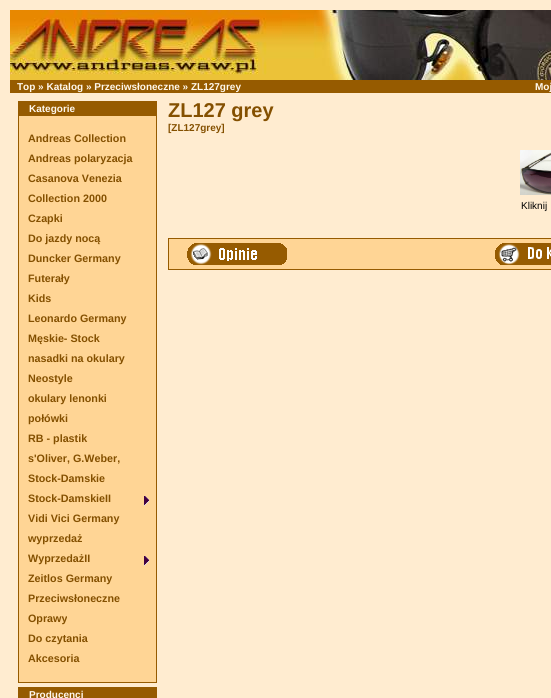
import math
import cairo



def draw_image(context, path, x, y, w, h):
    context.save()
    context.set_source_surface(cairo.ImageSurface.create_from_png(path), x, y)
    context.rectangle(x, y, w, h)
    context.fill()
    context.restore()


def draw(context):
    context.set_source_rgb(1, 236 / 255, 208 / 255)
    context.paint()
    draw_image(context, "images/1.png", 10, 10, 541, 70)
    context.set_source_rgb(150 / 255, 91 / 255, 0)
    context.rectangle(10, 80, 541, 13)
    context.fill()
    context.rectangle(18, 101, 139, 582)
    context.fill()
    context.set_source_rgb(1, 213 / 255, 149 / 255)
    context.rectangle(19, 116, 137, 566)
    context.fill()
    context.set_source_rgb(150 / 255, 91 / 255, 0)
    context.rectangle(18, 687, 139, 11)
    context.fill()
    draw_image(context, "images/2.png", 520, 150, 31, 45)
    context.rectangle(168, 238, 383, 32)
    context.fill()
    context.set_source_rgb(1, 213 / 255, 149 / 255)
    context.rectangle(169, 239, 382, 30)
    context.fill()
    draw_image(context, "images/3.png", 187, 243, 100, 22)
    draw_image(context, "images/4.png", 495, 243, 56, 22)
    draw_image(context, "images/5.png", 144, 496, 5, 10)
    draw_image(context, "images/5.png", 144, 556, 5, 10)
    context.select_font_face("Liberation Sans", cairo.FontSlant.NORMAL, cairo.FontWeight.BOLD)
    context.set_font_size(10)
    context.set_source_rgb(1, 248 / 255, 237 / 255)
    context.move_to(17, 90)
    context.show_text("Top » Katalog » Przeciwsłoneczne » ZL127grey")
    context.move_to(535, 90)
    context.show_text("Moj")
    context.move_to(29, 112)
    context.show_text("Kategorie")
    context.move_to(29, 698)
    context.show_text("Producenci")
    context.set_font_size(20)
    context.set_source_rgb(132 / 255, 80 / 255, 0)
    context.move_to(168, 117)
    context.show_text("ZL127 grey")
    context.set_font_size(10)
    context.move_to(168, 131)
    context.show_text("[ZL127grey]")
    context.select_font_face("Liberation Sans")
    context.set_source_rgb(0, 0, 0)
    context.move_to(521, 209)
    context.show_text("Kliknij")
    context.select_font_face("Liberation Sans", cairo.FontSlant.NORMAL, cairo.FontWeight.BOLD)
    context.set_font_size(10.75)
    context.set_source_rgb(132 / 255, 80 / 255, 0)
    context.move_to(28, 142)
    context.show_text("Andreas Collection")
    context.move_to(28, 162)
    context.show_text("Andreas polaryzacja")
    context.move_to(28, 182)
    context.show_text("Casanova Venezia")
    context.move_to(28, 202)
    context.show_text("Collection 2000")
    context.move_to(28, 222)
    context.show_text("Czapki")
    context.move_to(28, 242)
    context.show_text("Do jazdy nocą")
    context.move_to(28, 262)
    context.show_text("Duncker Germany")
    context.move_to(28, 282)
    context.show_text("Futerały")
    context.move_to(28, 302)
    context.show_text("Kids")
    context.move_to(28, 322)
    context.show_text("Leonardo Germany")
    context.move_to(28, 342)
    context.show_text("Męskie- Stock")
    context.move_to(28, 362)
    context.show_text("nasadki na okulary")
    context.move_to(28, 382)
    context.show_text("Neostyle")
    context.move_to(28, 402)
    context.show_text("okulary lenonki")
    context.move_to(28, 422)
    context.show_text("połówki")
    context.move_to(28, 442)
    context.show_text("RB - plastik")
    context.move_to(28, 462)
    context.show_text("s'Oliver, G.Weber,")
    context.move_to(28, 482)
    context.show_text("Stock-Damskie")
    context.move_to(28, 502)
    context.show_text("Stock-DamskieII")
    context.move_to(28, 522)
    context.show_text("Vidi Vici Germany")
    context.move_to(28, 542)
    context.show_text("wyprzedaż")
    context.move_to(28, 562)
    context.show_text("WyprzedażII")
    context.move_to(28, 582)
    context.show_text("Zeitlos Germany")
    context.move_to(28, 602)
    context.show_text("Przeciwsłoneczne")
    context.move_to(28, 622)
    context.show_text("Oprawy")
    context.move_to(28, 642)
    context.show_text("Do czytania")
    context.move_to(28, 662)
    context.show_text("Akcesoria")


surface = cairo.ImageSurface(cairo.Format.RGB24, 551, 698)
context = cairo.Context(surface)
options = cairo.FontOptions()
options.set_hint_metrics(cairo.HintMetrics.OFF)
options.set_hint_style(cairo.HintStyle.NONE)
context.set_font_options(options)
context.set_miter_limit(4)
draw(context)
surface.write_to_png("out.png")
